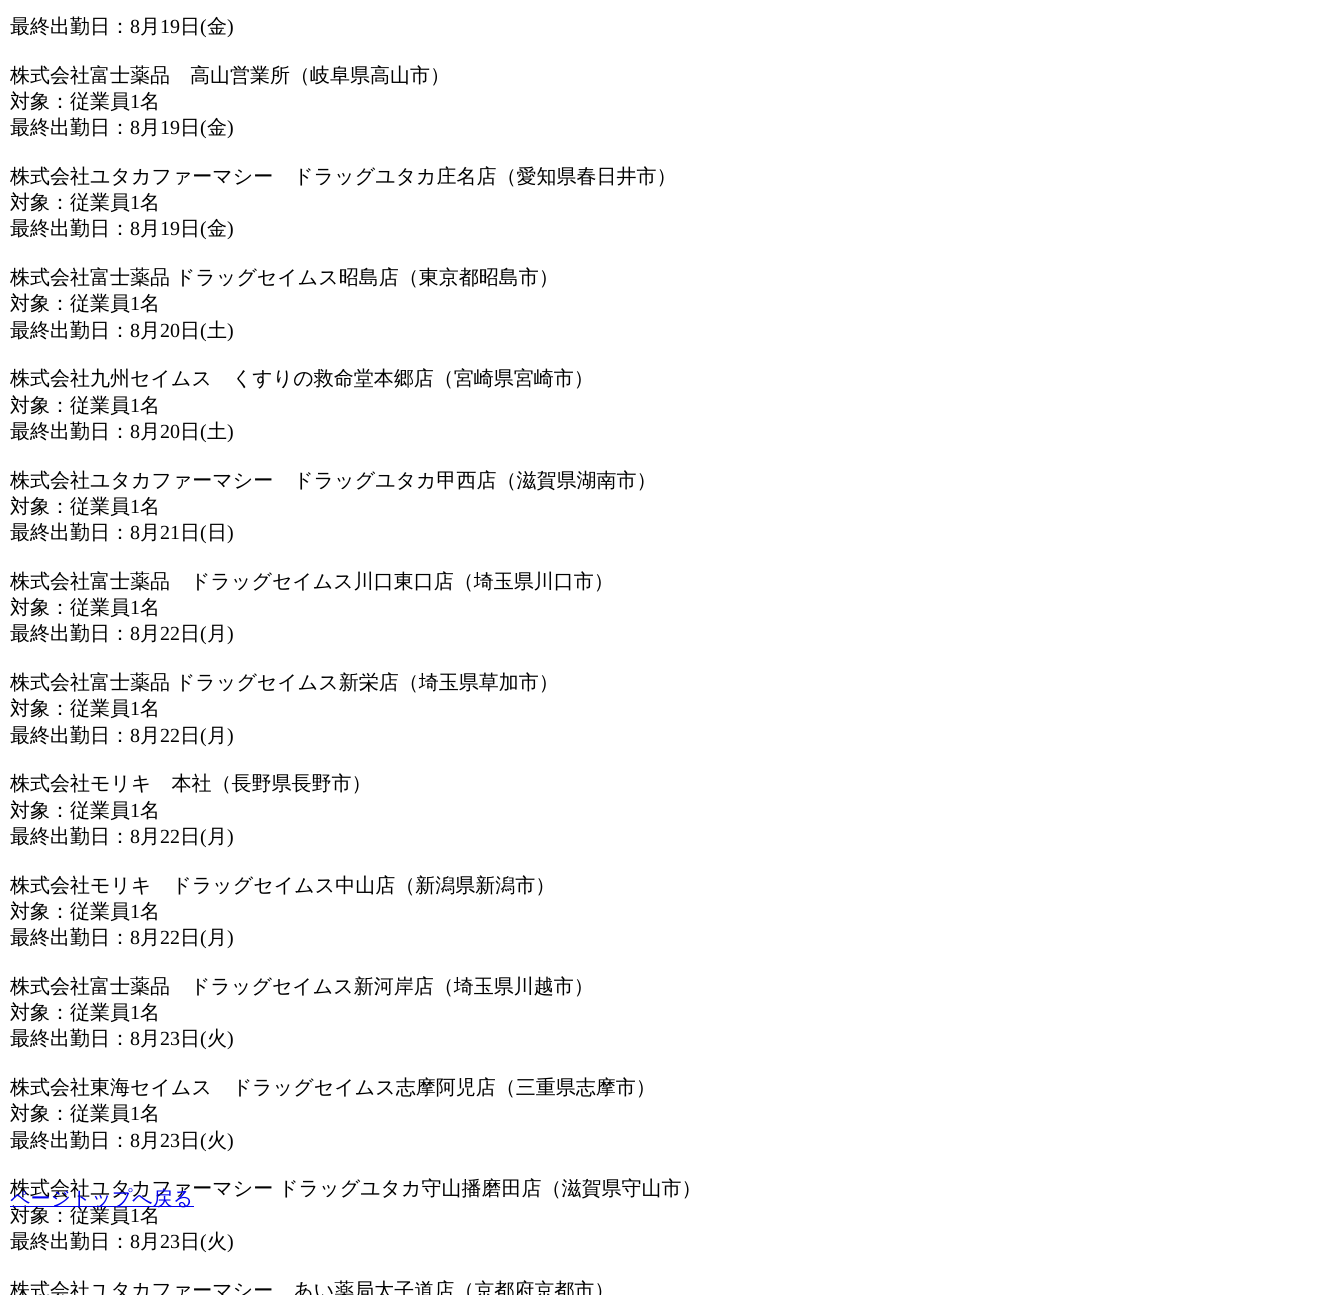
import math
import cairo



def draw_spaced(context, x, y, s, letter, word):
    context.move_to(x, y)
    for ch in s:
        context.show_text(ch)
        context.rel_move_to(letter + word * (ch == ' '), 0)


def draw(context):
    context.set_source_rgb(1, 1, 1)
    context.paint()
    context.select_font_face("WenQuanYi Zen Hei Medium")
    context.set_font_size(20)
    context.set_source_rgb(0, 0, 0)
    context.move_to(10, 33)
    context.show_text("最終出勤日：")
    context.select_font_face("Liberation Serif")
    context.move_to(130, 33)
    context.show_text("8")
    context.select_font_face("WenQuanYi Zen Hei Medium")
    context.move_to(140, 33)
    context.show_text("月")
    context.select_font_face("Liberation Serif")
    context.move_to(160, 33)
    context.show_text("19")
    context.select_font_face("WenQuanYi Zen Hei Medium")
    context.move_to(180, 33)
    context.show_text("日")
    context.select_font_face("Liberation Serif")
    context.move_to(200, 33)
    context.show_text("(")
    context.select_font_face("WenQuanYi Zen Hei Medium")
    context.move_to(207, 33)
    context.show_text("金")
    context.select_font_face("Liberation Serif")
    context.move_to(227, 33)
    context.show_text(")")
    context.select_font_face("WenQuanYi Zen Hei Medium")
    context.move_to(10, 82)
    context.show_text("株式会社富士薬品　高山営業所（岐阜県高山市）")
    context.move_to(10, 108)
    context.show_text("対象：従業員")
    context.select_font_face("Liberation Serif")
    context.move_to(130, 108)
    context.show_text("1")
    context.select_font_face("WenQuanYi Zen Hei Medium")
    context.move_to(140, 108)
    context.show_text("名")
    context.move_to(10, 134)
    context.show_text("最終出勤日：")
    context.select_font_face("Liberation Serif")
    context.move_to(130, 134)
    context.show_text("8")
    context.select_font_face("WenQuanYi Zen Hei Medium")
    context.move_to(140, 134)
    context.show_text("月")
    context.select_font_face("Liberation Serif")
    context.move_to(160, 134)
    context.show_text("19")
    context.select_font_face("WenQuanYi Zen Hei Medium")
    context.move_to(180, 134)
    context.show_text("日")
    context.select_font_face("Liberation Serif")
    context.move_to(200, 134)
    context.show_text("(")
    context.select_font_face("WenQuanYi Zen Hei Medium")
    context.move_to(207, 134)
    context.show_text("金")
    context.select_font_face("Liberation Serif")
    context.move_to(227, 134)
    context.show_text(")")
    context.select_font_face("WenQuanYi Zen Hei Medium")
    context.move_to(10, 183)
    context.show_text("株式会社ユタカファーマシー　ドラッグユタカ庄名店（愛知県春日井市）")
    context.move_to(10, 209)
    context.show_text("対象：従業員")
    context.select_font_face("Liberation Serif")
    context.move_to(130, 209)
    context.show_text("1")
    context.select_font_face("WenQuanYi Zen Hei Medium")
    context.move_to(140, 209)
    context.show_text("名")
    context.move_to(10, 235)
    context.show_text("最終出勤日：")
    context.select_font_face("Liberation Serif")
    context.move_to(130, 235)
    context.show_text("8")
    context.select_font_face("WenQuanYi Zen Hei Medium")
    context.move_to(140, 235)
    context.show_text("月")
    context.select_font_face("Liberation Serif")
    context.move_to(160, 235)
    context.show_text("19")
    context.select_font_face("WenQuanYi Zen Hei Medium")
    context.move_to(180, 235)
    context.show_text("日")
    context.select_font_face("Liberation Serif")
    context.move_to(200, 235)
    context.show_text("(")
    context.select_font_face("WenQuanYi Zen Hei Medium")
    context.move_to(207, 235)
    context.show_text("金")
    context.select_font_face("Liberation Serif")
    context.move_to(227, 235)
    context.show_text(")")
    context.select_font_face("WenQuanYi Zen Hei Medium")
    draw_spaced(context, 10, 284, "株式会社富士薬品 ドラッグセイムス昭島店（東京都昭島市）", 0, -1)
    context.move_to(10, 310)
    context.show_text("対象：従業員")
    context.select_font_face("Liberation Serif")
    context.move_to(130, 310)
    context.show_text("1")
    context.select_font_face("WenQuanYi Zen Hei Medium")
    context.move_to(140, 310)
    context.show_text("名")
    context.move_to(10, 337)
    context.show_text("最終出勤日：")
    context.select_font_face("Liberation Serif")
    context.move_to(130, 337)
    context.show_text("8")
    context.select_font_face("WenQuanYi Zen Hei Medium")
    context.move_to(140, 337)
    context.show_text("月")
    context.select_font_face("Liberation Serif")
    context.move_to(160, 337)
    context.show_text("20")
    context.select_font_face("WenQuanYi Zen Hei Medium")
    context.move_to(180, 337)
    context.show_text("日")
    context.select_font_face("Liberation Serif")
    context.move_to(200, 337)
    context.show_text("(")
    context.select_font_face("WenQuanYi Zen Hei Medium")
    context.move_to(207, 337)
    context.show_text("土")
    context.select_font_face("Liberation Serif")
    context.move_to(227, 337)
    context.show_text(")")
    context.select_font_face("WenQuanYi Zen Hei Medium")
    context.move_to(10, 385)
    context.show_text("株式会社九州セイムス　くすりの救命堂本郷店（宮崎県宮崎市）")
    context.move_to(10, 412)
    context.show_text("対象：従業員")
    context.select_font_face("Liberation Serif")
    context.move_to(130, 412)
    context.show_text("1")
    context.select_font_face("WenQuanYi Zen Hei Medium")
    context.move_to(140, 412)
    context.show_text("名")
    context.move_to(10, 438)
    context.show_text("最終出勤日：")
    context.select_font_face("Liberation Serif")
    context.move_to(130, 438)
    context.show_text("8")
    context.select_font_face("WenQuanYi Zen Hei Medium")
    context.move_to(140, 438)
    context.show_text("月")
    context.select_font_face("Liberation Serif")
    context.move_to(160, 438)
    context.show_text("20")
    context.select_font_face("WenQuanYi Zen Hei Medium")
    context.move_to(180, 438)
    context.show_text("日")
    context.select_font_face("Liberation Serif")
    context.move_to(200, 438)
    context.show_text("(")
    context.select_font_face("WenQuanYi Zen Hei Medium")
    context.move_to(207, 438)
    context.show_text("土")
    context.select_font_face("Liberation Serif")
    context.move_to(227, 438)
    context.show_text(")")
    context.select_font_face("WenQuanYi Zen Hei Medium")
    context.move_to(10, 487)
    context.show_text("株式会社ユタカファーマシー　ドラッグユタカ甲西店（滋賀県湖南市）")
    context.move_to(10, 513)
    context.show_text("対象：従業員")
    context.select_font_face("Liberation Serif")
    context.move_to(130, 513)
    context.show_text("1")
    context.select_font_face("WenQuanYi Zen Hei Medium")
    context.move_to(140, 513)
    context.show_text("名")
    context.move_to(10, 539)
    context.show_text("最終出勤日：")
    context.select_font_face("Liberation Serif")
    context.move_to(130, 539)
    context.show_text("8")
    context.select_font_face("WenQuanYi Zen Hei Medium")
    context.move_to(140, 539)
    context.show_text("月")
    context.select_font_face("Liberation Serif")
    context.move_to(160, 539)
    context.show_text("21")
    context.select_font_face("WenQuanYi Zen Hei Medium")
    context.move_to(180, 539)
    context.show_text("日")
    context.select_font_face("Liberation Serif")
    context.move_to(200, 539)
    context.show_text("(")
    context.select_font_face("WenQuanYi Zen Hei Medium")
    context.move_to(207, 539)
    context.show_text("日")
    context.select_font_face("Liberation Serif")
    context.move_to(227, 539)
    context.show_text(")")
    context.select_font_face("WenQuanYi Zen Hei Medium")
    context.move_to(10, 588)
    context.show_text("株式会社富士薬品　ドラッグセイムス川口東口店（埼玉県川口市）")
    context.move_to(10, 614)
    context.show_text("対象：従業員")
    context.select_font_face("Liberation Serif")
    context.move_to(130, 614)
    context.show_text("1")
    context.select_font_face("WenQuanYi Zen Hei Medium")
    context.move_to(140, 614)
    context.show_text("名")
    context.move_to(10, 640)
    context.show_text("最終出勤日：")
    context.select_font_face("Liberation Serif")
    context.move_to(130, 640)
    context.show_text("8")
    context.select_font_face("WenQuanYi Zen Hei Medium")
    context.move_to(140, 640)
    context.show_text("月")
    context.select_font_face("Liberation Serif")
    context.move_to(160, 640)
    context.show_text("22")
    context.select_font_face("WenQuanYi Zen Hei Medium")
    context.move_to(180, 640)
    context.show_text("日")
    context.select_font_face("Liberation Serif")
    context.move_to(200, 640)
    context.show_text("(")
    context.select_font_face("WenQuanYi Zen Hei Medium")
    context.move_to(207, 640)
    context.show_text("月")
    context.select_font_face("Liberation Serif")
    context.move_to(227, 640)
    context.show_text(")")
    context.select_font_face("WenQuanYi Zen Hei Medium")
    draw_spaced(context, 10, 689, "株式会社富士薬品 ドラッグセイムス新栄店（埼玉県草加市）", 0, -1)
    context.move_to(10, 715)
    context.show_text("対象：従業員")
    context.select_font_face("Liberation Serif")
    context.move_to(130, 715)
    context.show_text("1")
    context.select_font_face("WenQuanYi Zen Hei Medium")
    context.move_to(140, 715)
    context.show_text("名")
    context.move_to(10, 742)
    context.show_text("最終出勤日：")
    context.select_font_face("Liberation Serif")
    context.move_to(130, 742)
    context.show_text("8")
    context.select_font_face("WenQuanYi Zen Hei Medium")
    context.move_to(140, 742)
    context.show_text("月")
    context.select_font_face("Liberation Serif")
    context.move_to(160, 742)
    context.show_text("22")
    context.select_font_face("WenQuanYi Zen Hei Medium")
    context.move_to(180, 742)
    context.show_text("日")
    context.select_font_face("Liberation Serif")
    context.move_to(200, 742)
    context.show_text("(")
    context.select_font_face("WenQuanYi Zen Hei Medium")
    context.move_to(207, 742)
    context.show_text("月")
    context.select_font_face("Liberation Serif")
    context.move_to(227, 742)
    context.show_text(")")
    context.select_font_face("WenQuanYi Zen Hei Medium")
    context.move_to(10, 790)
    context.show_text("株式会社モリキ　本社（長野県長野市）")
    context.move_to(10, 817)
    context.show_text("対象：従業員")
    context.select_font_face("Liberation Serif")
    context.move_to(130, 817)
    context.show_text("1")
    context.select_font_face("WenQuanYi Zen Hei Medium")
    context.move_to(140, 817)
    context.show_text("名")
    context.move_to(10, 843)
    context.show_text("最終出勤日：")
    context.select_font_face("Liberation Serif")
    context.move_to(130, 843)
    context.show_text("8")
    context.select_font_face("WenQuanYi Zen Hei Medium")
    context.move_to(140, 843)
    context.show_text("月")
    context.select_font_face("Liberation Serif")
    context.move_to(160, 843)
    context.show_text("22")
    context.select_font_face("WenQuanYi Zen Hei Medium")
    context.move_to(180, 843)
    context.show_text("日")
    context.select_font_face("Liberation Serif")
    context.move_to(200, 843)
    context.show_text("(")
    context.select_font_face("WenQuanYi Zen Hei Medium")
    context.move_to(207, 843)
    context.show_text("月")
    context.select_font_face("Liberation Serif")
    context.move_to(227, 843)
    context.show_text(")")
    context.select_font_face("WenQuanYi Zen Hei Medium")
    context.move_to(10, 892)
    context.show_text("株式会社モリキ　ドラッグセイムス中山店（新潟県新潟市）")
    context.move_to(10, 918)
    context.show_text("対象：従業員")
    context.select_font_face("Liberation Serif")
    context.move_to(130, 918)
    context.show_text("1")
    context.select_font_face("WenQuanYi Zen Hei Medium")
    context.move_to(140, 918)
    context.show_text("名")
    context.move_to(10, 944)
    context.show_text("最終出勤日：")
    context.select_font_face("Liberation Serif")
    context.move_to(130, 944)
    context.show_text("8")
    context.select_font_face("WenQuanYi Zen Hei Medium")
    context.move_to(140, 944)
    context.show_text("月")
    context.select_font_face("Liberation Serif")
    context.move_to(160, 944)
    context.show_text("22")
    context.select_font_face("WenQuanYi Zen Hei Medium")
    context.move_to(180, 944)
    context.show_text("日")
    context.select_font_face("Liberation Serif")
    context.move_to(200, 944)
    context.show_text("(")
    context.select_font_face("WenQuanYi Zen Hei Medium")
    context.move_to(207, 944)
    context.show_text("月")
    context.select_font_face("Liberation Serif")
    context.move_to(227, 944)
    context.show_text(")")
    context.select_font_face("WenQuanYi Zen Hei Medium")
    context.move_to(10, 993)
    context.show_text("株式会社富士薬品　ドラッグセイムス新河岸店（埼玉県川越市）")
    context.move_to(10, 1019)
    context.show_text("対象：従業員")
    context.select_font_face("Liberation Serif")
    context.move_to(130, 1019)
    context.show_text("1")
    context.select_font_face("WenQuanYi Zen Hei Medium")
    context.move_to(140, 1019)
    context.show_text("名")
    context.move_to(10, 1045)
    context.show_text("最終出勤日：")
    context.select_font_face("Liberation Serif")
    context.move_to(130, 1045)
    context.show_text("8")
    context.select_font_face("WenQuanYi Zen Hei Medium")
    context.move_to(140, 1045)
    context.show_text("月")
    context.select_font_face("Liberation Serif")
    context.move_to(160, 1045)
    context.show_text("23")
    context.select_font_face("WenQuanYi Zen Hei Medium")
    context.move_to(180, 1045)
    context.show_text("日")
    context.select_font_face("Liberation Serif")
    context.move_to(200, 1045)
    context.show_text("(")
    context.select_font_face("WenQuanYi Zen Hei Medium")
    context.move_to(207, 1045)
    context.show_text("火")
    context.select_font_face("Liberation Serif")
    context.move_to(227, 1045)
    context.show_text(")")
    context.select_font_face("WenQuanYi Zen Hei Medium")
    context.move_to(10, 1094)
    context.show_text("株式会社東海セイムス　ドラッグセイムス志摩阿児店（三重県志摩市）")
    context.move_to(10, 1120)
    context.show_text("対象：従業員")
    context.select_font_face("Liberation Serif")
    context.move_to(130, 1120)
    context.show_text("1")
    context.select_font_face("WenQuanYi Zen Hei Medium")
    context.move_to(140, 1120)
    context.show_text("名")
    context.move_to(10, 1147)
    context.show_text("最終出勤日：")
    context.select_font_face("Liberation Serif")
    context.move_to(130, 1147)
    context.show_text("8")
    context.select_font_face("WenQuanYi Zen Hei Medium")
    context.move_to(140, 1147)
    context.show_text("月")
    context.select_font_face("Liberation Serif")
    context.move_to(160, 1147)
    context.show_text("23")
    context.select_font_face("WenQuanYi Zen Hei Medium")
    context.move_to(180, 1147)
    context.show_text("日")
    context.select_font_face("Liberation Serif")
    context.move_to(200, 1147)
    context.show_text("(")
    context.select_font_face("WenQuanYi Zen Hei Medium")
    context.move_to(207, 1147)
    context.show_text("火")
    context.select_font_face("Liberation Serif")
    context.move_to(227, 1147)
    context.show_text(")")
    context.select_font_face("WenQuanYi Zen Hei Medium")
    draw_spaced(context, 10, 1195, "株式会社ユタカファーマシー ドラッグユタカ守山播磨田店（滋賀県守山市）", 0, -1)
    context.move_to(10, 1222)
    context.show_text("対象：従業員")
    context.select_font_face("Liberation Serif")
    context.move_to(130, 1222)
    context.show_text("1")
    context.select_font_face("WenQuanYi Zen Hei Medium")
    context.move_to(140, 1222)
    context.show_text("名")
    context.move_to(10, 1248)
    context.show_text("最終出勤日：")
    context.select_font_face("Liberation Serif")
    context.move_to(130, 1248)
    context.show_text("8")
    context.select_font_face("WenQuanYi Zen Hei Medium")
    context.move_to(140, 1248)
    context.show_text("月")
    context.select_font_face("Liberation Serif")
    context.move_to(160, 1248)
    context.show_text("23")
    context.select_font_face("WenQuanYi Zen Hei Medium")
    context.move_to(180, 1248)
    context.show_text("日")
    context.select_font_face("Liberation Serif")
    context.move_to(200, 1248)
    context.show_text("(")
    context.select_font_face("WenQuanYi Zen Hei Medium")
    context.move_to(207, 1248)
    context.show_text("火")
    context.select_font_face("Liberation Serif")
    context.move_to(227, 1248)
    context.show_text(")")
    context.select_font_face("WenQuanYi Zen Hei Medium")
    context.move_to(10, 1297)
    context.show_text("株式会社ユタカファーマシー　あい薬局太子道店（京都府京都市）")
    context.set_source_rgb(0, 0, 238 / 255)
    context.rectangle(10, 1206, 184, 1)
    context.fill()
    context.move_to(10, 1205)
    context.show_text("ページトップへ戻る")


surface = cairo.ImageSurface(cairo.Format.RGB24, 1319, 1295)
context = cairo.Context(surface)
options = cairo.FontOptions()
options.set_hint_metrics(cairo.HintMetrics.OFF)
options.set_hint_style(cairo.HintStyle.NONE)
context.set_font_options(options)
context.set_miter_limit(4)
draw(context)
surface.write_to_png("out.png")
